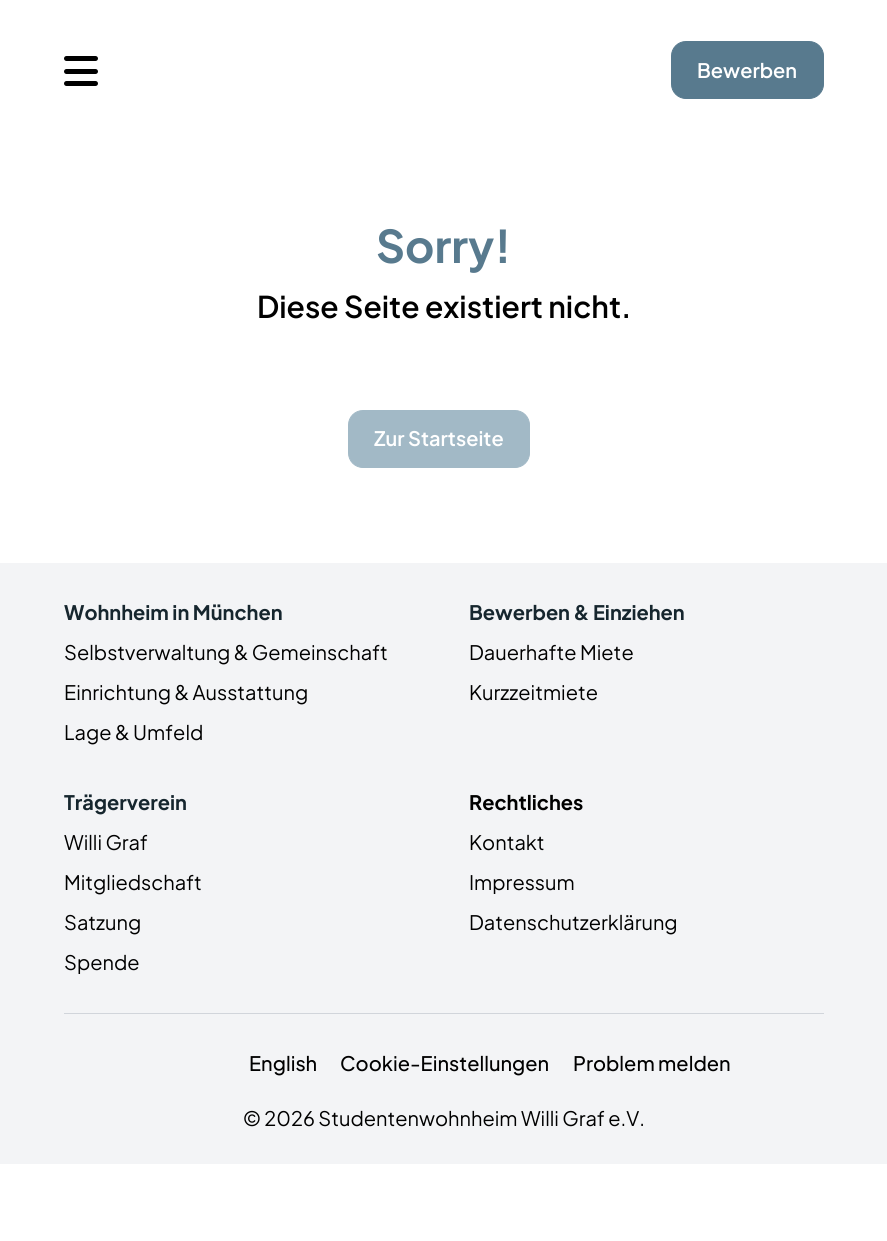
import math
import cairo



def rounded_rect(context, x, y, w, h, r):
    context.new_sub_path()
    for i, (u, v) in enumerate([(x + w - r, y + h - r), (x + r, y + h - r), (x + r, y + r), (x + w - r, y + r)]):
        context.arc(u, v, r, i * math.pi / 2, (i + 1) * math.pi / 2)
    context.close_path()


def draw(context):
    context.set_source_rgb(1, 1, 1)
    context.paint()
    context.set_source_rgb(0, 0, 0)
    rounded_rect(context, 64, 69, 34, 5, 2.5)
    context.fill()
    rounded_rect(context, 64, 56, 34, 5, 2.5)
    context.fill()
    rounded_rect(context, 64, 81, 34, 5, 2.5)
    context.fill()
    context.set_source_rgb(88 / 255, 122 / 255, 142 / 255)
    rounded_rect(context, 671.5, 41.5, 152, 57, 14.5)
    context.fill_preserve()
    context.set_line_width(1)
    context.stroke()
    context.set_source_rgb(162 / 255, 185 / 255, 198 / 255)
    rounded_rect(context, 348.5, 410.5, 181, 57, 14.5)
    context.fill_preserve()
    context.stroke()
    context.set_source_rgb(243 / 255, 244 / 255, 246 / 255)
    context.rectangle(0, 563, 887, 601)
    context.fill()
    context.set_source_rgb(209 / 255, 213 / 255, 219 / 255)
    context.rectangle(64, 1013, 760, 1)
    context.fill()
    context.select_font_face("Plus Jakarta Sans SemiBold")
    context.set_font_size(20)
    context.set_source_rgb(1, 1, 1)
    context.move_to(697, 78)
    context.show_text("Bewerben")
    context.select_font_face("Plus Jakarta Sans", cairo.FontSlant.NORMAL, cairo.FontWeight.BOLD)
    context.set_font_size(45)
    context.set_source_rgb(88 / 255, 122 / 255, 142 / 255)
    context.move_to(376, 263)
    context.show_text("Sorry!")
    context.select_font_face("Plus Jakarta Sans SemiBold")
    context.set_font_size(30)
    context.set_source_rgb(0, 0, 0)
    context.move_to(257, 318)
    context.show_text("Diese Seite existiert nicht.")
    context.set_font_size(20)
    context.set_source_rgb(1, 1, 1)
    context.move_to(374, 446)
    context.show_text("Zur Startseite")
    context.select_font_face("Plus Jakarta Sans", cairo.FontSlant.NORMAL, cairo.FontWeight.BOLD)
    context.set_source_rgb(22 / 255, 38 / 255, 46 / 255)
    context.move_to(64, 620)
    context.show_text("Wohnheim in München")
    context.select_font_face("Plus Jakarta Sans")
    context.set_source_rgb(0, 0, 0)
    context.move_to(64, 660)
    context.show_text("Selbstverwaltung & Gemeinschaft")
    context.move_to(64, 700)
    context.show_text("Einrichtung & Ausstattung")
    context.move_to(64, 740)
    context.show_text("Lage & Umfeld")
    context.select_font_face("Plus Jakarta Sans", cairo.FontSlant.NORMAL, cairo.FontWeight.BOLD)
    context.set_source_rgb(22 / 255, 38 / 255, 46 / 255)
    context.move_to(469, 620)
    context.show_text("Bewerben & Einziehen")
    context.select_font_face("Plus Jakarta Sans")
    context.set_source_rgb(0, 0, 0)
    context.move_to(469, 660)
    context.show_text("Dauerhafte Miete")
    context.move_to(469, 700)
    context.show_text("Kurzzeitmiete")
    context.select_font_face("Plus Jakarta Sans", cairo.FontSlant.NORMAL, cairo.FontWeight.BOLD)
    context.set_source_rgb(22 / 255, 38 / 255, 46 / 255)
    context.move_to(64, 810)
    context.show_text("Trägerverein")
    context.select_font_face("Plus Jakarta Sans")
    context.set_source_rgb(0, 0, 0)
    context.move_to(64, 850)
    context.show_text("Willi Graf")
    context.move_to(64, 890)
    context.show_text("Mitgliedschaft")
    context.move_to(64, 930)
    context.show_text("Satzung")
    context.move_to(64, 970)
    context.show_text("Spende")
    context.select_font_face("Plus Jakarta Sans", cairo.FontSlant.NORMAL, cairo.FontWeight.BOLD)
    context.move_to(469, 810)
    context.show_text("Rechtliches")
    context.select_font_face("Plus Jakarta Sans")
    context.move_to(469, 850)
    context.show_text("Kontakt")
    context.move_to(469, 890)
    context.show_text("Impressum")
    context.move_to(469, 930)
    context.show_text("Datenschutzerklärung")
    context.select_font_face("Plus Jakarta Sans Medium")
    context.move_to(249, 1071)
    context.show_text("English")
    context.move_to(340, 1071)
    context.show_text("Cookie-Einstellungen")
    context.move_to(573, 1071)
    context.show_text("Problem melden")
    context.select_font_face("Plus Jakarta Sans")
    context.move_to(243, 1126)
    context.show_text("© 2026 Studentenwohnheim Willi Graf e.V.")


surface = cairo.ImageSurface(cairo.Format.RGB24, 887, 1241)
context = cairo.Context(surface)
options = cairo.FontOptions()
options.set_hint_metrics(cairo.HintMetrics.OFF)
options.set_hint_style(cairo.HintStyle.NONE)
context.set_font_options(options)
context.set_miter_limit(4)
draw(context)
surface.write_to_png("out.png")
